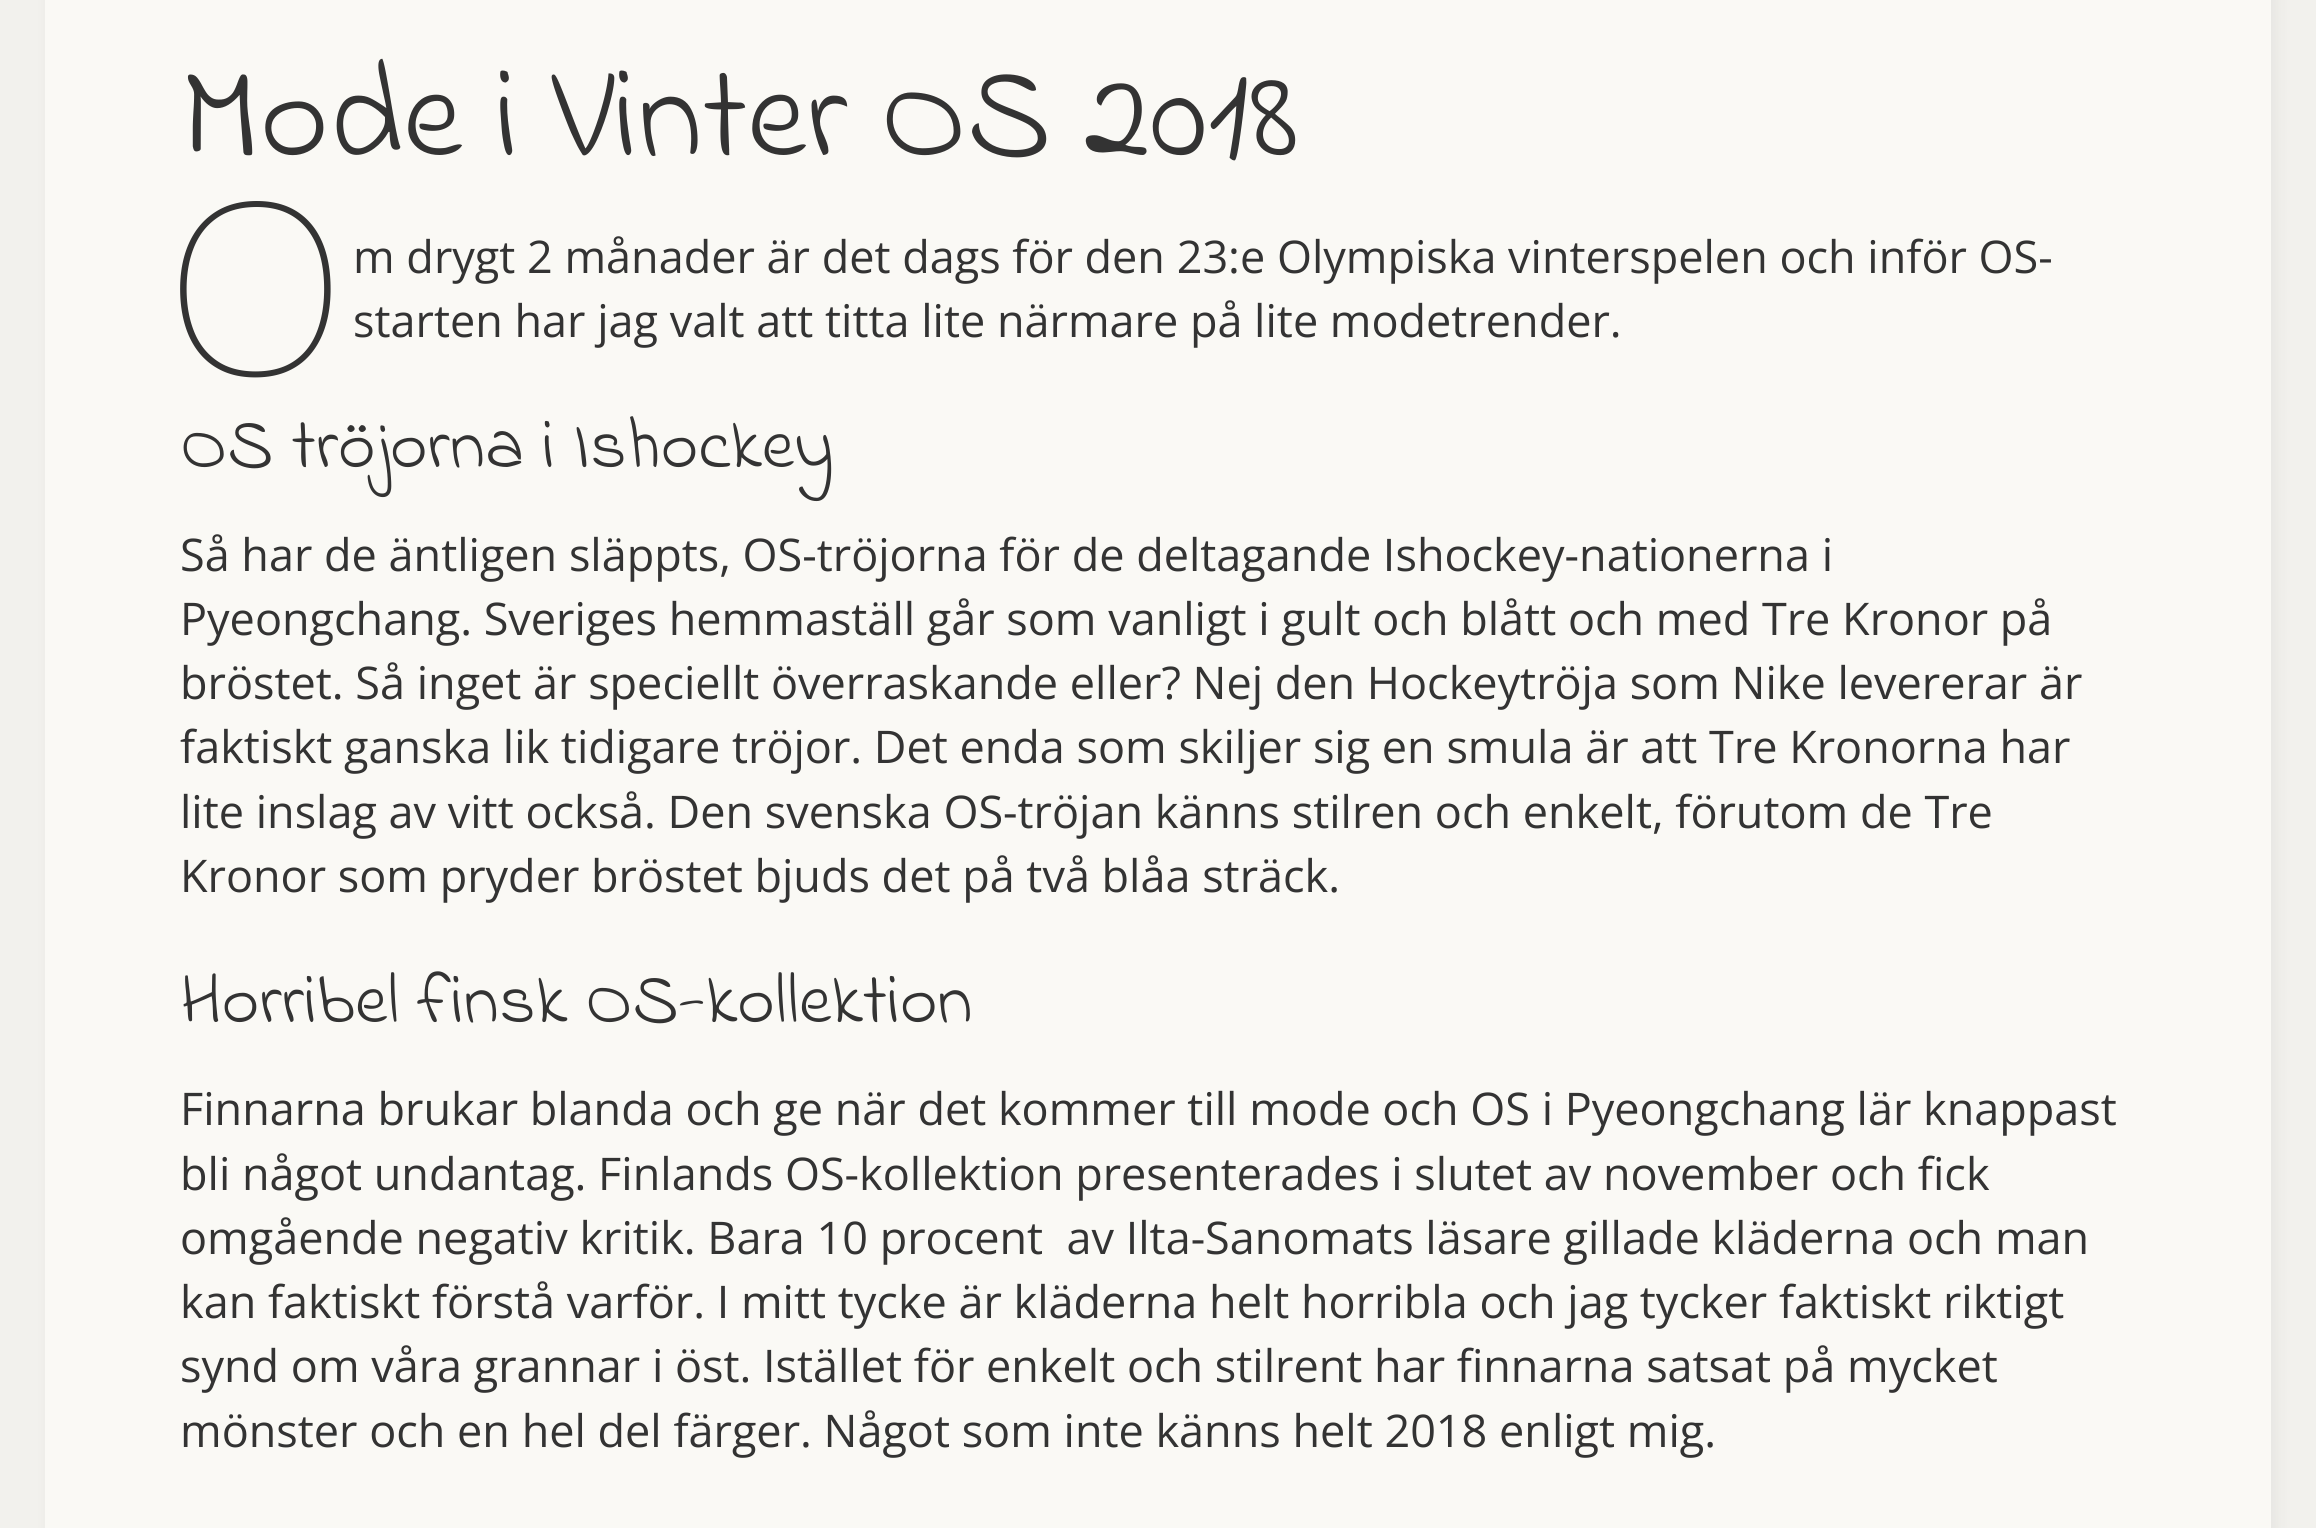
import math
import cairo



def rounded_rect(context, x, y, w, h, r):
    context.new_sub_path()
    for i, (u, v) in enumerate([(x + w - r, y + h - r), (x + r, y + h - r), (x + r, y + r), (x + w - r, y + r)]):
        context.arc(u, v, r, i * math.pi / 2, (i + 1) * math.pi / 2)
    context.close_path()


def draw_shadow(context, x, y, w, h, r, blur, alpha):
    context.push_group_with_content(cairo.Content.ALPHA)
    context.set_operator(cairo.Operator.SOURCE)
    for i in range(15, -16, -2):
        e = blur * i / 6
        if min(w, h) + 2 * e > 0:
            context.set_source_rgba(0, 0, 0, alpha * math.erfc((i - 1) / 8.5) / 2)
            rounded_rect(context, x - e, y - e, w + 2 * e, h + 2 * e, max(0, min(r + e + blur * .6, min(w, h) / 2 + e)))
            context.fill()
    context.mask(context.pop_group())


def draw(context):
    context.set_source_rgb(242 / 255, 241 / 255, 237 / 255)
    context.paint()
    context.set_source_rgb(0, 0, 0)
    draw_shadow(context, 51, -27, 2226, 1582, 0, 9, 0.05)
    context.set_source_rgb(250 / 255, 249 / 255, 245 / 255)
    context.rectangle(45, 0, 2226, 1528)
    context.fill()
    context.select_font_face("Indie Flower")
    context.set_font_size(132)
    context.set_source_rgb(51 / 255, 51 / 255, 51 / 255)
    context.move_to(180, 155)
    context.show_text("Mode i Vinter OS 2018")
    context.select_font_face("Noto Sans Thin")
    context.set_font_size(240)
    context.move_to(165, 375)
    context.show_text("O")
    context.select_font_face("Open Sans")
    context.set_font_size(45)
    context.move_to(353, 273)
    context.show_text("m drygt 2 månader är det dags för den 23:e Olympiska vinterspelen och inför OS-")
    context.move_to(353, 337)
    context.show_text("starten har jag valt att titta lite närmare på lite modetrender.")
    context.select_font_face("Indie Flower")
    context.set_font_size(72)
    context.move_to(180, 467)
    context.show_text("OS tröjorna i Ishockey")
    context.select_font_face("Open Sans")
    context.set_font_size(45)
    context.move_to(180, 571)
    context.show_text("Så har de äntligen släppts, OS-tröjorna för de deltagande Ishockey-nationerna i")
    context.move_to(180, 635)
    context.show_text("Pyeongchang. Sveriges hemmaställ går som vanligt i gult och blått och med Tre Kronor på")
    context.move_to(180, 699)
    context.show_text("bröstet. Så inget är speciellt överraskande eller? Nej den Hockeytröja som Nike levererar är")
    context.move_to(180, 763)
    context.show_text("faktiskt ganska lik tidigare tröjor. Det enda som skiljer sig en smula är att Tre Kronorna har")
    context.move_to(180, 828)
    context.show_text("lite inslag av vitt också. Den svenska OS-tröjan känns stilren och enkelt, förutom de Tre")
    context.move_to(180, 892)
    context.show_text("Kronor som pryder bröstet bjuds det på två blåa sträck.")
    context.select_font_face("Indie Flower")
    context.set_font_size(72)
    context.move_to(180, 1022)
    context.show_text("Horribel finsk OS-kollektion")
    context.select_font_face("Open Sans")
    context.set_font_size(45)
    context.move_to(180, 1125)
    context.show_text("Finnarna brukar blanda och ge när det kommer till mode och OS i Pyeongchang lär knappast")
    context.move_to(180, 1190)
    context.show_text("bli något undantag. Finlands OS-kollektion presenterades i slutet av november och fick")
    context.move_to(180, 1254)
    context.show_text("omgående negativ kritik. Bara 10 procent  av Ilta-Sanomats läsare gillade kläderna och man")
    context.move_to(180, 1318)
    context.show_text("kan faktiskt förstå varför. I mitt tycke är kläderna helt horribla och jag tycker faktiskt riktigt")
    context.move_to(180, 1382)
    context.show_text("synd om våra grannar i öst. Istället för enkelt och stilrent har finnarna satsat på mycket")
    context.move_to(180, 1447)
    context.show_text("mönster och en hel del färger. Något som inte känns helt 2018 enligt mig.")


surface = cairo.ImageSurface(cairo.Format.RGB24, 2316, 1528)
context = cairo.Context(surface)
options = cairo.FontOptions()
options.set_hint_metrics(cairo.HintMetrics.OFF)
options.set_hint_style(cairo.HintStyle.NONE)
context.set_font_options(options)
context.set_miter_limit(4)
draw(context)
surface.write_to_png("out.png")
